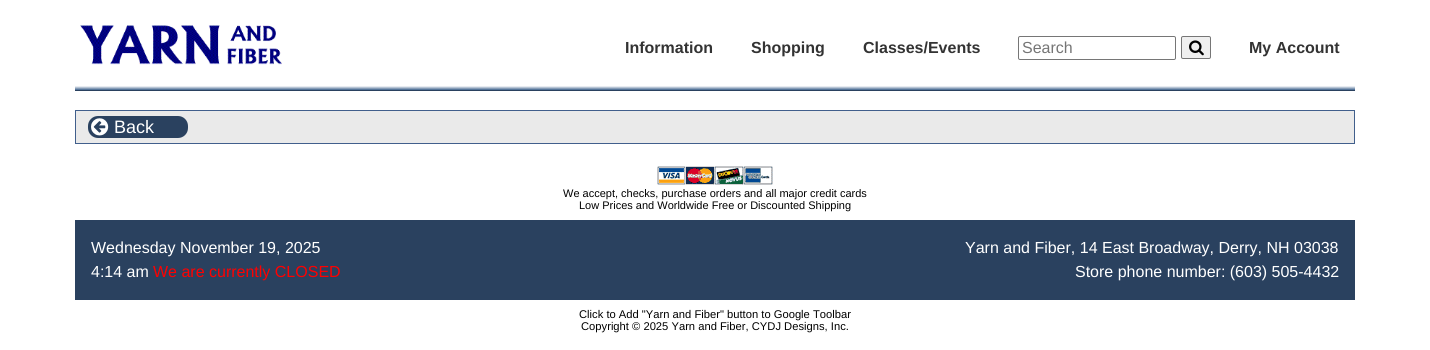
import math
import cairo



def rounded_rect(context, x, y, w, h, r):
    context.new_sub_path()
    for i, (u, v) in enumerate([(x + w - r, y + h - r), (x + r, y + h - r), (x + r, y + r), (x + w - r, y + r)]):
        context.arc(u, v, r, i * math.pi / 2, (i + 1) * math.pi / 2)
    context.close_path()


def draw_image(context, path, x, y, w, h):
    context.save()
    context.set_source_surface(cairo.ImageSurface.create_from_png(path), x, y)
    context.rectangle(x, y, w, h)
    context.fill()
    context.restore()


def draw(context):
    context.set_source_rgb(1, 1, 1)
    context.paint()
    draw_image(context, "images/1.png", 80, 25, 202, 40)
    rounded_rect(context, 1018.5, 36.5, 157, 23, 1.5)
    context.set_source_rgb(118 / 255, 118 / 255, 118 / 255)
    context.set_line_width(1)
    context.stroke()
    context.set_source_rgb(239 / 255, 239 / 255, 239 / 255)
    rounded_rect(context, 1181.5, 36.5, 29, 22, 1.5)
    context.fill_preserve()
    context.set_source_rgb(118 / 255, 118 / 255, 118 / 255)
    context.stroke()
    draw_image(context, "images/2.png", 1189, 40, 15, 16)
    gradient = cairo.LinearGradient(715, 86, 715, 90)
    gradient.add_color_stop_rgba(0, 1, 1, 1, 1)
    gradient.add_color_stop_rgba(1, 61 / 255, 97 / 255, 140 / 255, 1)
    context.set_source(gradient)
    context.rectangle(75, 86, 1280, 4)
    context.fill()
    context.set_source_rgb(42 / 255, 65 / 255, 95 / 255)
    context.rectangle(75, 90, 1280, 1)
    context.fill()
    context.set_source_rgb(234 / 255, 234 / 255, 234 / 255)
    context.rectangle(75.5, 110.5, 1279, 33)
    context.fill_preserve()
    context.set_source_rgb(65 / 255, 95 / 255, 140 / 255)
    context.stroke()
    context.set_source_rgb(42 / 255, 65 / 255, 95 / 255)
    rounded_rect(context, 88, 116, 100, 22, 10)
    context.fill()
    draw_image(context, "images/3.png", 91, 118, 18, 18)
    draw_image(context, "images/4.png", 657, 166, 116, 19)
    context.rectangle(75, 220, 1280, 80)
    context.fill()
    context.select_font_face("Liberation Sans", cairo.FontSlant.NORMAL, cairo.FontWeight.BOLD)
    context.set_font_size(16)
    context.set_source_rgb(51 / 255, 51 / 255, 51 / 255)
    context.move_to(625, 53)
    context.show_text("Information")
    context.move_to(751, 53)
    context.show_text("Shopping")
    context.move_to(863, 53)
    context.show_text("Classes/Events")
    context.select_font_face("Liberation Sans")
    context.set_source_rgb(117 / 255, 117 / 255, 117 / 255)
    context.move_to(1022, 53)
    context.show_text("Search")
    context.select_font_face("Liberation Sans", cairo.FontSlant.NORMAL, cairo.FontWeight.BOLD)
    context.set_source_rgb(51 / 255, 51 / 255, 51 / 255)
    context.move_to(1249, 53)
    context.show_text("My Account")
    context.select_font_face("Liberation Sans")
    context.set_font_size(18)
    context.set_source_rgb(1, 1, 1)
    context.move_to(114, 133)
    context.show_text("Back")
    context.set_font_size(11)
    context.set_source_rgb(0, 0, 0)
    context.move_to(563, 197)
    context.show_text("We accept, checks, purchase orders and all major credit cards")
    context.move_to(579, 209)
    context.show_text("Low Prices and Worldwide Free or Discounted Shipping")
    context.set_font_size(16)
    context.set_source_rgb(1, 1, 1)
    context.move_to(91, 253)
    context.show_text("Wednesday November 19, 2025")
    context.move_to(91, 277)
    context.show_text("4:14 am")
    context.set_source_rgb(1, 0, 0)
    context.move_to(153, 277)
    context.show_text("We are currently CLOSED")
    context.set_source_rgb(1, 1, 1)
    context.move_to(965, 253)
    context.show_text("Yarn and Fiber, 14 East Broadway, Derry, NH 03038")
    context.move_to(1075, 277)
    context.show_text("Store phone number: (603) 505-4432")
    context.set_font_size(11.2)
    context.set_source_rgb(0, 0, 0)
    context.move_to(579, 318)
    context.show_text("Click to Add \"Yarn and Fiber\" button to Google Toolbar")
    context.move_to(581, 330)
    context.show_text("Copyright © 2025 Yarn and Fiber, CYDJ Designs, Inc.")


surface = cairo.ImageSurface(cairo.Format.RGB24, 1430, 350)
context = cairo.Context(surface)
options = cairo.FontOptions()
options.set_hint_metrics(cairo.HintMetrics.OFF)
options.set_hint_style(cairo.HintStyle.NONE)
context.set_font_options(options)
context.set_miter_limit(4)
draw(context)
surface.write_to_png("out.png")
